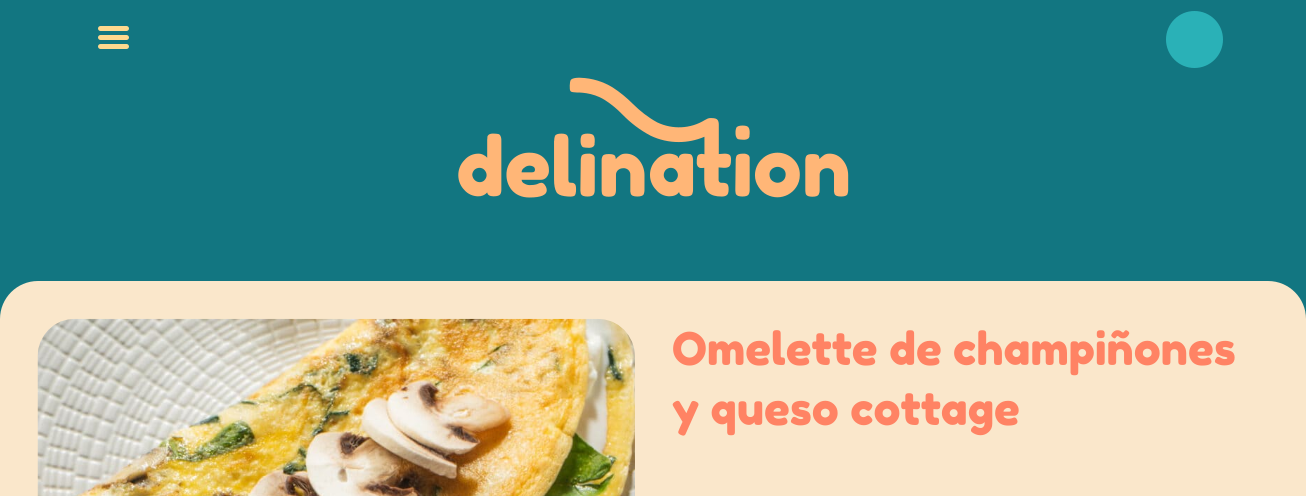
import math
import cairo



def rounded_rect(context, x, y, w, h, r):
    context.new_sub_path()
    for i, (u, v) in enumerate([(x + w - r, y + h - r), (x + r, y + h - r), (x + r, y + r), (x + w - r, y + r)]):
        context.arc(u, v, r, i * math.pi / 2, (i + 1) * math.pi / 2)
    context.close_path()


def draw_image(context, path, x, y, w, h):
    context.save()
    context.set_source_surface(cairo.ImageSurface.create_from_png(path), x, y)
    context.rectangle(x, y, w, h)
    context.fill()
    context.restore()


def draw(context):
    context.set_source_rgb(18 / 255, 118 / 255, 129 / 255)
    context.paint()
    context.set_source_rgb(1, 217 / 255, 142 / 255)
    rounded_rect(context, 98, 26, 31, 5, 2.5)
    context.fill()
    rounded_rect(context, 98, 35, 31, 5, 2.5)
    context.fill()
    rounded_rect(context, 98, 44, 31, 5, 2.5)
    context.fill()
    context.set_source_rgb(42 / 255, 177 / 255, 183 / 255)
    context.arc(1194.5, 39.5, 28.5, 0, 2 * math.pi)
    context.fill()
    draw_image(context, "images/1.png", 458, 77, 391, 121)
    context.set_source_rgb(250 / 255, 231 / 255, 203 / 255)
    rounded_rect(context, 0, 281, 1306, 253, 38)
    context.fill()
    draw_image(context, "images/2.png", 37, 318, 598, 178)
    context.select_font_face("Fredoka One")
    context.set_font_size(45)
    context.set_source_rgb(1, 131 / 255, 100 / 255)
    context.move_to(672, 365)
    context.show_text("Omelette de champiñones")
    context.move_to(672, 425)
    context.show_text("y queso cottage")


surface = cairo.ImageSurface(cairo.Format.RGB24, 1306, 496)
context = cairo.Context(surface)
options = cairo.FontOptions()
options.set_hint_metrics(cairo.HintMetrics.OFF)
options.set_hint_style(cairo.HintStyle.NONE)
context.set_font_options(options)
context.set_miter_limit(4)
draw(context)
surface.write_to_png("out.png")
